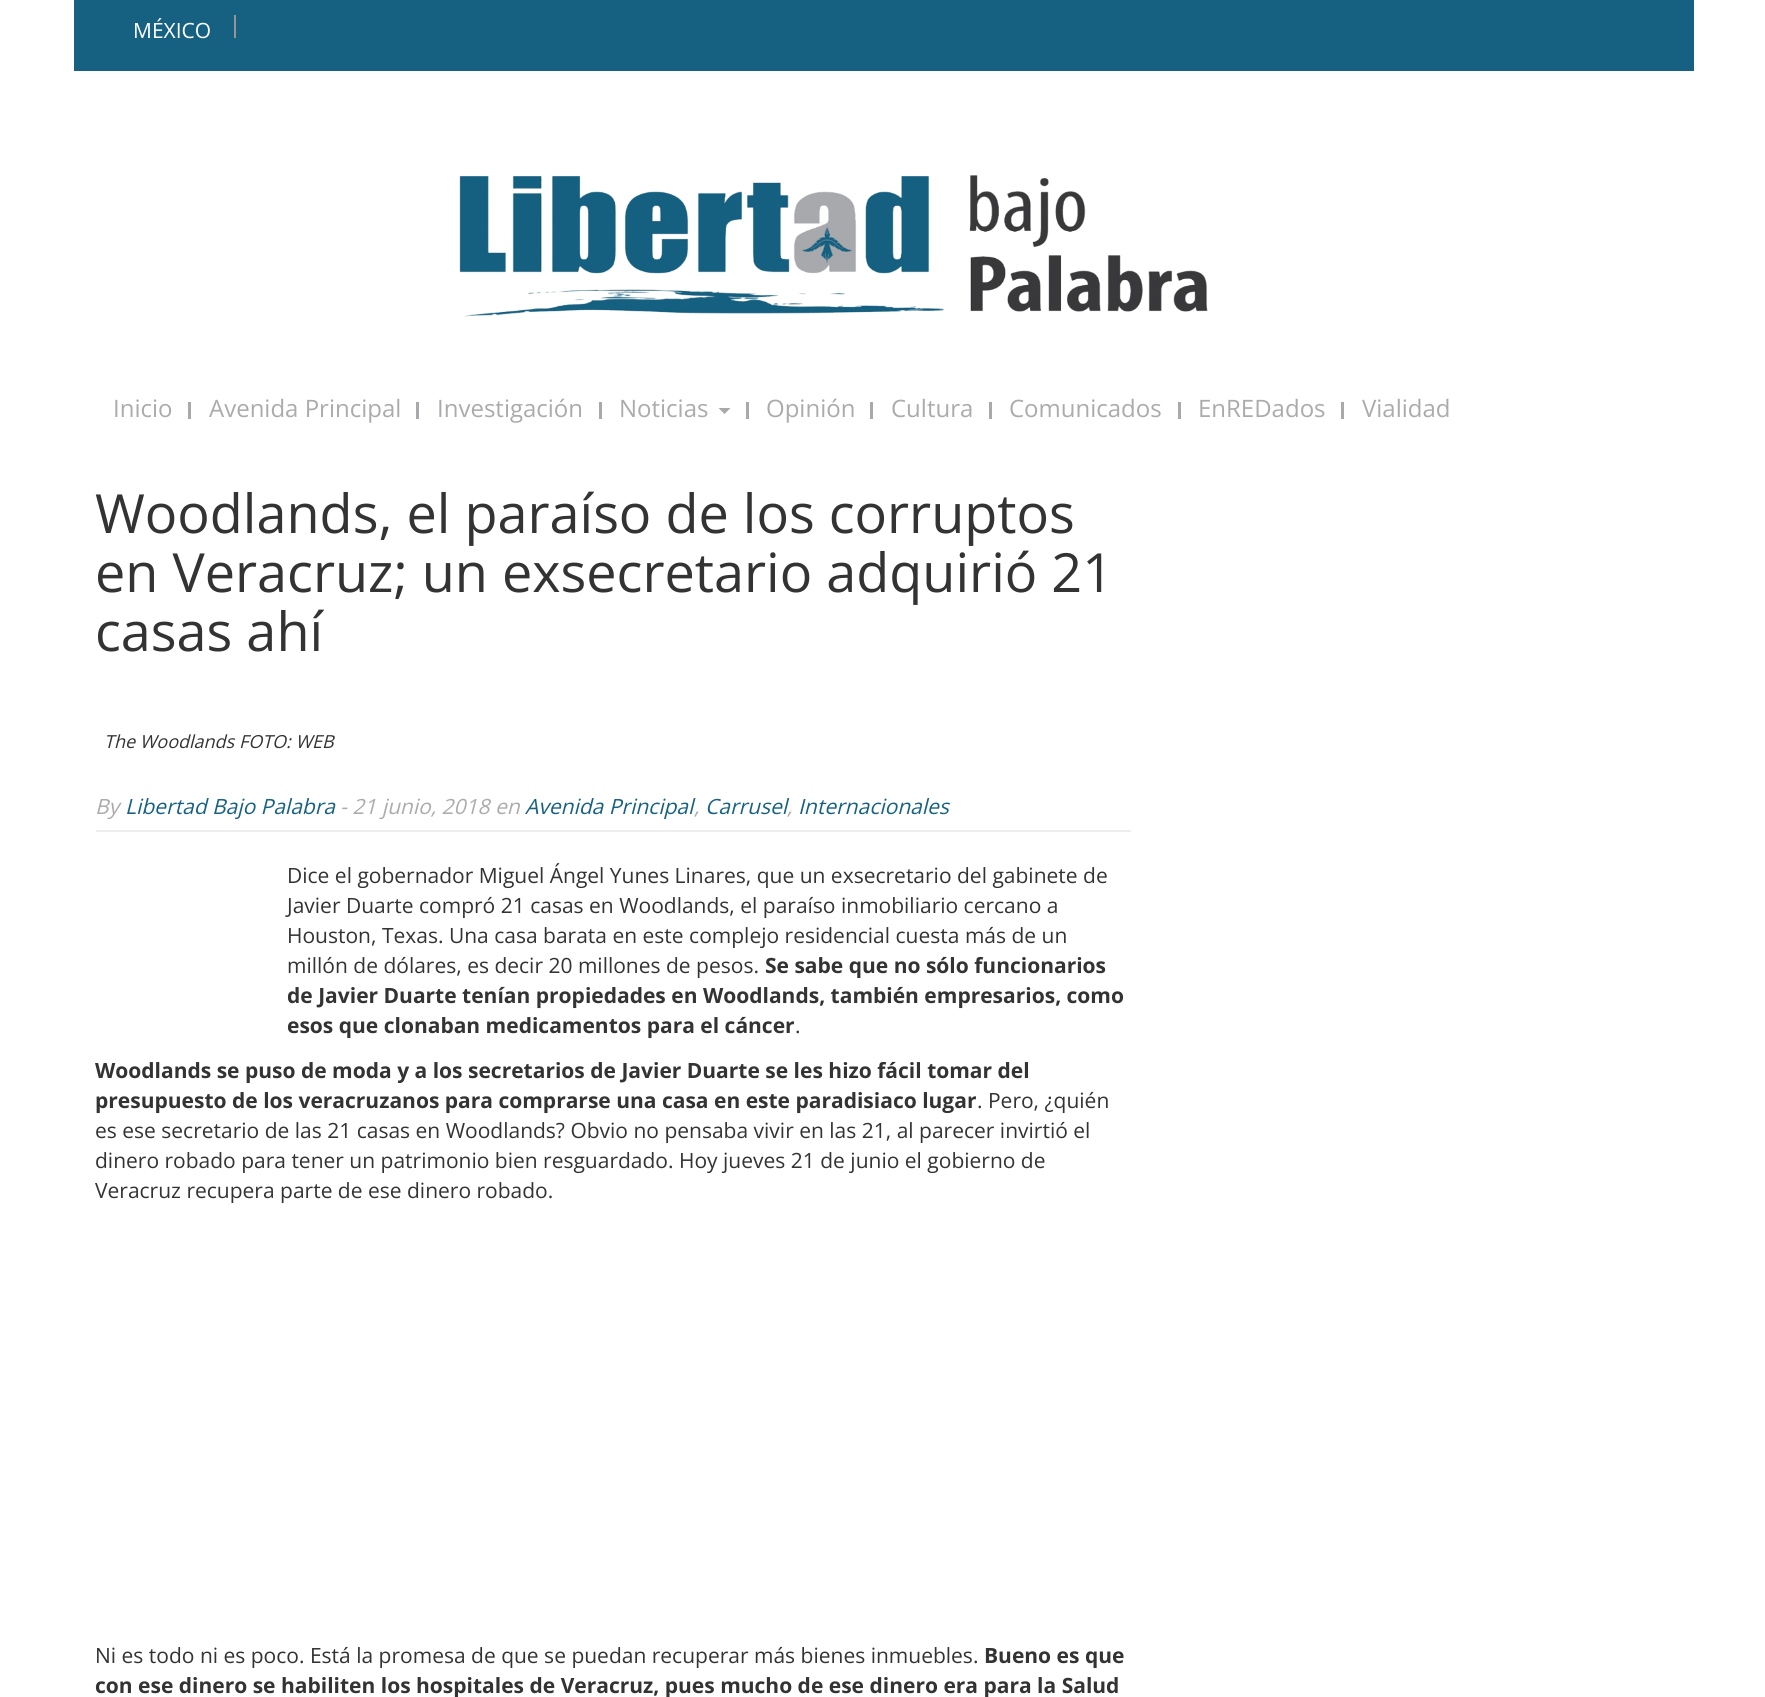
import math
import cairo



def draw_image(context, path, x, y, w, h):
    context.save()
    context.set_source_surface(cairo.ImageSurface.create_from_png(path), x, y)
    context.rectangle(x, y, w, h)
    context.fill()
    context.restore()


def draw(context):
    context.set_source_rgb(1, 1, 1)
    context.paint()
    context.set_source_rgb(22 / 255, 97 / 255, 130 / 255)
    context.rectangle(74, 0, 1620, 71)
    context.fill()
    context.set_source_rgb(150 / 255, 150 / 255, 150 / 255)
    context.rectangle(234, 15, 2, 23)
    context.fill()
    draw_image(context, "images/1.png", 459, 175, 749, 142)
    context.set_source_rgb(167 / 255, 169 / 255, 172 / 255)
    context.rectangle(188, 402, 3, 17)
    context.fill()
    context.rectangle(416, 402, 3, 17)
    context.fill()
    context.rectangle(599, 402, 3, 17)
    context.fill()
    context.new_path()
    context.move_to(718.5, 408)
    context.line_to(730.5, 408)
    context.line_to(724.5, 414)
    context.close_path()
    context.fill()
    context.rectangle(746, 402, 3, 17)
    context.fill()
    context.rectangle(870, 402, 3, 17)
    context.fill()
    context.rectangle(989, 402, 3, 17)
    context.fill()
    context.rectangle(1178, 402, 3, 17)
    context.fill()
    context.rectangle(1341, 402, 3, 17)
    context.fill()
    context.set_source_rgb(238 / 255, 238 / 255, 238 / 255)
    context.rectangle(96, 830, 1035, 2)
    context.fill()
    context.select_font_face("Open Sans")
    context.set_font_size(21)
    context.set_source_rgb(1, 1, 1)
    context.move_to(133, 38)
    context.show_text("MÉXICO")
    context.set_font_size(24)
    context.set_source_rgb(171 / 255, 171 / 255, 171 / 255)
    context.move_to(113, 417)
    context.show_text("Inicio")
    context.move_to(209, 417)
    context.show_text("Avenida Principal")
    context.move_to(437, 417)
    context.show_text("Investigación")
    context.move_to(619, 417)
    context.show_text("Noticias")
    context.move_to(766, 417)
    context.show_text("Opinión")
    context.move_to(891, 417)
    context.show_text("Cultura")
    context.move_to(1009, 417)
    context.show_text("Comunicados")
    context.move_to(1198, 417)
    context.show_text("EnREDados")
    context.move_to(1362, 417)
    context.show_text("Vialidad")
    context.set_font_size(54)
    context.set_source_rgb(51 / 255, 51 / 255, 51 / 255)
    context.move_to(95, 533)
    context.show_text("Woodlands, el paraíso de los corruptos")
    context.move_to(95, 592)
    context.show_text("en Veracruz; un exsecretario adquirió 21")
    context.move_to(95, 651)
    context.show_text("casas ahí")
    context.select_font_face("Open Sans", cairo.FontSlant.ITALIC)
    context.set_font_size(18)
    context.move_to(104, 748)
    context.show_text("The Woodlands FOTO: WEB")
    context.set_font_size(21)
    context.set_source_rgb(171 / 255, 171 / 255, 171 / 255)
    context.move_to(95, 814)
    context.show_text("By")
    context.set_source_rgb(22 / 255, 97 / 255, 130 / 255)
    context.move_to(125, 814)
    context.show_text("Libertad Bajo Palabra")
    context.set_source_rgb(171 / 255, 171 / 255, 171 / 255)
    context.move_to(340, 814)
    context.show_text("- 21 junio, 2018 en")
    context.set_source_rgb(22 / 255, 97 / 255, 130 / 255)
    context.move_to(525, 814)
    context.show_text("Avenida Principal")
    context.move_to(705, 814)
    context.show_text("Carrusel")
    context.move_to(798, 814)
    context.show_text("Internacionales")
    context.set_source_rgb(171 / 255, 171 / 255, 171 / 255)
    context.move_to(694, 814)
    context.show_text(",")
    context.move_to(787, 814)
    context.show_text(",")
    context.select_font_face("Open Sans")
    context.set_source_rgb(51 / 255, 51 / 255, 51 / 255)
    context.move_to(287, 883)
    context.show_text("Dice el gobernador Miguel Ángel Yunes Linares, que un exsecretario del gabinete de")
    context.move_to(287, 913)
    context.show_text("Javier Duarte compró 21 casas en Woodlands, el paraíso inmobiliario cercano a")
    context.move_to(287, 943)
    context.show_text("Houston, Texas. Una casa barata en este complejo residencial cuesta más de un")
    context.move_to(287, 973)
    context.show_text("millón de dólares, es decir 20 millones de pesos.")
    context.select_font_face("Open Sans", cairo.FontSlant.NORMAL, cairo.FontWeight.BOLD)
    context.move_to(765, 973)
    context.show_text("Se sabe que no sólo funcionarios")
    context.move_to(287, 1003)
    context.show_text("de Javier Duarte tenían propiedades en Woodlands, también empresarios, como")
    context.move_to(287, 1033)
    context.show_text("esos que clonaban medicamentos para el cáncer")
    context.select_font_face("Open Sans")
    context.move_to(795, 1033)
    context.show_text(".")
    context.select_font_face("Open Sans", cairo.FontSlant.NORMAL, cairo.FontWeight.BOLD)
    context.move_to(95, 1078)
    context.show_text("Woodlands se puso de moda y a los secretarios de Javier Duarte se les hizo fácil tomar del")
    context.move_to(95, 1108)
    context.show_text("presupuesto de los veracruzanos para comprarse una casa en este paradisiaco lugar")
    context.select_font_face("Open Sans")
    context.move_to(977, 1108)
    context.show_text(". Pero, ¿quién")
    context.move_to(95, 1138)
    context.show_text("es ese secretario de las 21 casas en Woodlands? Obvio no pensaba vivir en las 21, al parecer invirtió el")
    context.move_to(95, 1168)
    context.show_text("dinero robado para tener un patrimonio bien resguardado. Hoy jueves 21 de junio el gobierno de")
    context.move_to(95, 1198)
    context.show_text("Veracruz recupera parte de ese dinero robado.")
    context.move_to(95, 1663)
    context.show_text("Ni es todo ni es poco. Está la promesa de que se puedan recuperar más bienes inmuebles.")
    context.select_font_face("Open Sans", cairo.FontSlant.NORMAL, cairo.FontWeight.BOLD)
    context.move_to(984, 1663)
    context.show_text("Bueno es que")
    context.move_to(95, 1693)
    context.show_text("con ese dinero se habiliten los hospitales de Veracruz, pues mucho de ese dinero era para la Salud")


surface = cairo.ImageSurface(cairo.Format.RGB24, 1765, 1697)
context = cairo.Context(surface)
options = cairo.FontOptions()
options.set_hint_metrics(cairo.HintMetrics.OFF)
options.set_hint_style(cairo.HintStyle.NONE)
context.set_font_options(options)
context.set_miter_limit(4)
draw(context)
surface.write_to_png("out.png")
